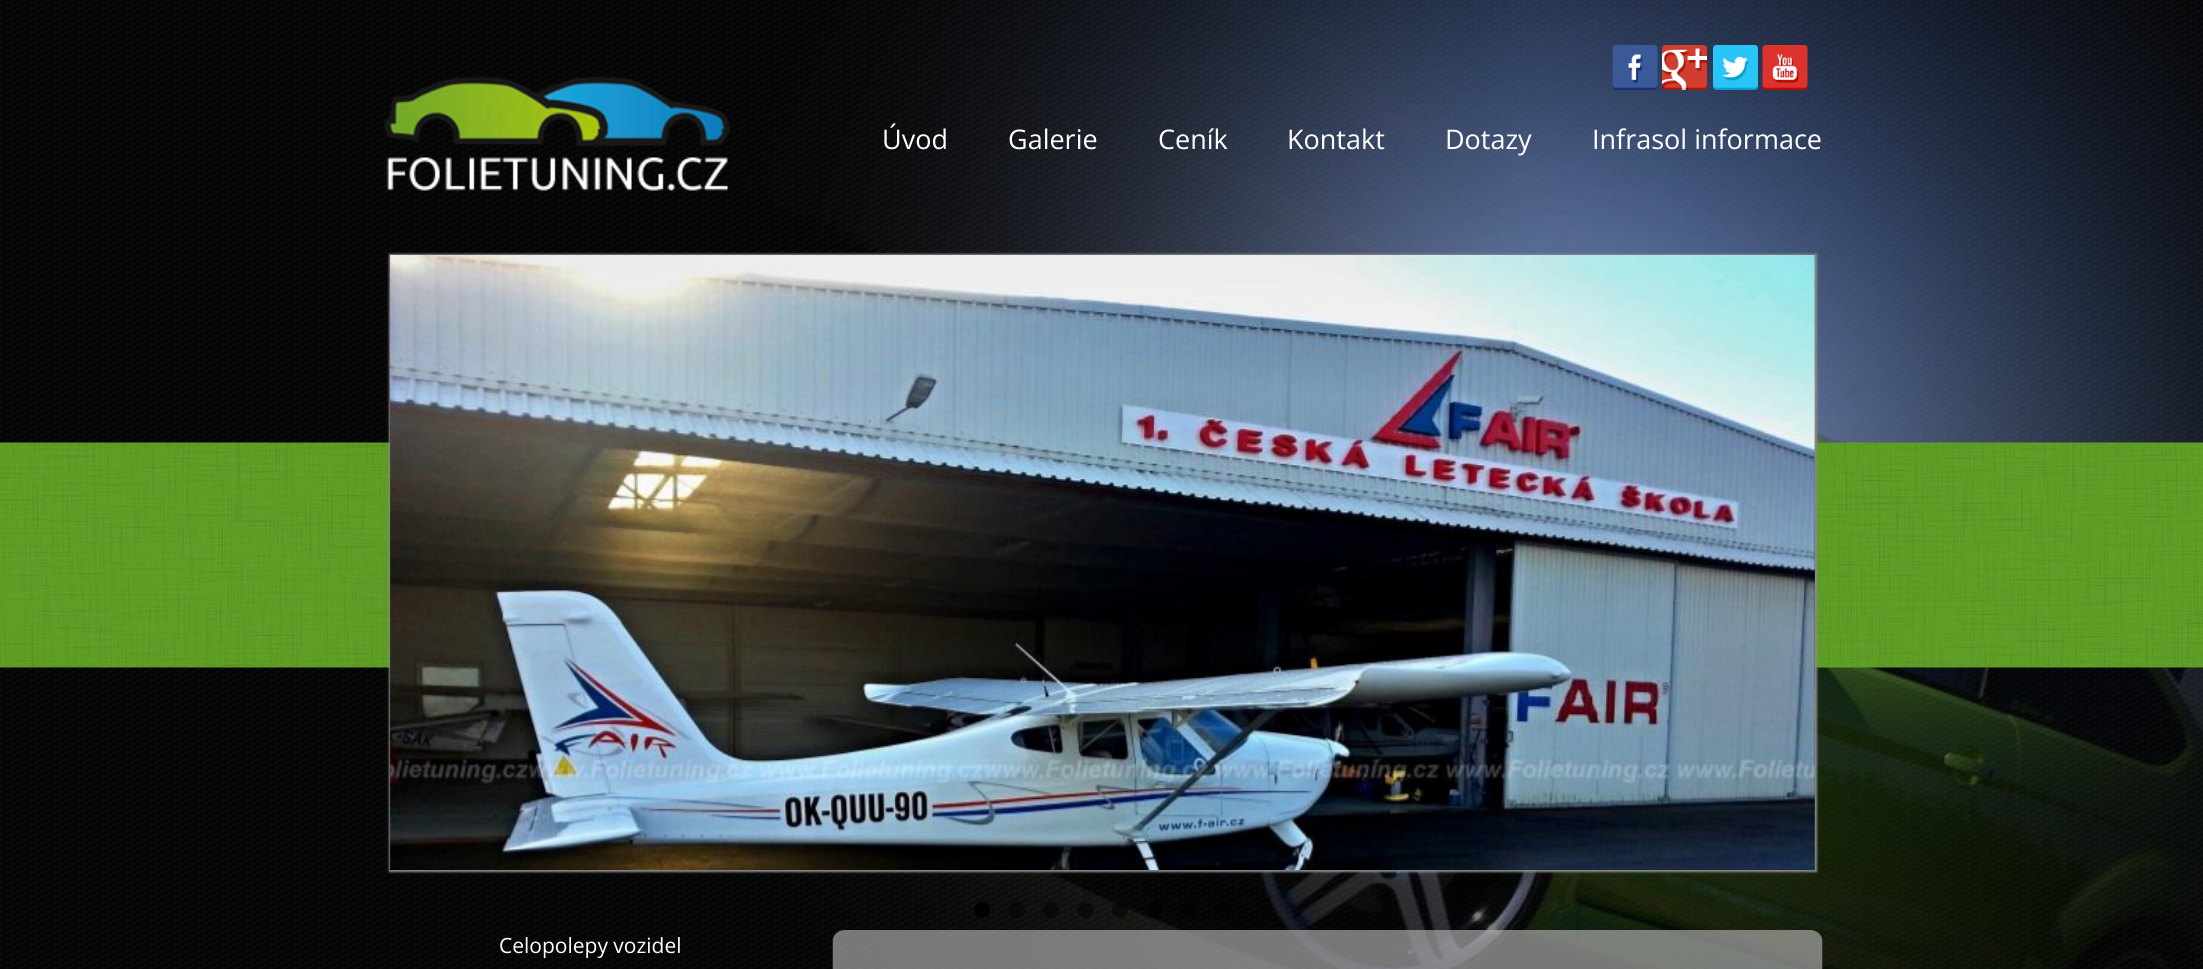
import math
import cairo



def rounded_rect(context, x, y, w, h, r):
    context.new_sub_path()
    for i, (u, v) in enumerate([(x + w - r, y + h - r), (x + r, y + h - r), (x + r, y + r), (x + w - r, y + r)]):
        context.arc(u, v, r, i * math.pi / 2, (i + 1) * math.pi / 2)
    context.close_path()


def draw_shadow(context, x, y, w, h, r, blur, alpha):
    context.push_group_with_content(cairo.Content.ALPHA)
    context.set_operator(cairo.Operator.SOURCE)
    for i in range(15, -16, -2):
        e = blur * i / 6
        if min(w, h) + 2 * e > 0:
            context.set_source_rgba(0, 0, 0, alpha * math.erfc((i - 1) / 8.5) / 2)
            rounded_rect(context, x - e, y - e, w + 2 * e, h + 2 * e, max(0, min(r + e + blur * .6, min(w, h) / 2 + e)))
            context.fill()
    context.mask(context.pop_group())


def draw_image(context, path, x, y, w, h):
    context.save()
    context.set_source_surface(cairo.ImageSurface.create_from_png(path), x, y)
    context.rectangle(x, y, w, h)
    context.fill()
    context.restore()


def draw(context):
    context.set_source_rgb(1, 1, 1)
    context.paint()
    draw_image(context, "images/1.png", 0, 0, 2203, 969)
    draw_image(context, "images/2.png", 1612, 45, 46, 45)
    draw_image(context, "images/3.png", 1662, 45, 45, 45)
    draw_image(context, "images/4.png", 1713, 45, 45, 45)
    draw_image(context, "images/5.png", 1762, 45, 46, 45)
    draw_image(context, "images/6.png", 384, 76, 347, 115)
    draw_image(context, "images/7.png", 0, 442, 2203, 226)
    context.set_source_rgb(136 / 255, 136 / 255, 136 / 255)
    draw_shadow(context, 389, 254, 1428, 618, 0, 1, 1)
    draw_image(context, "images/8.png", 390, 450, 1425, 225)
    draw_image(context, "images/9.png", 390, 255, 1425, 615)
    draw_image(context, "images/10.png", 1814, 255, 1, 576)
    context.set_source_rgba(0, 0, 0, 0.9)
    context.arc(982, 910, 8, 0, 2 * math.pi)
    context.fill()
    context.set_source_rgba(0, 0, 0, 0.5)
    rounded_rect(context, 1008, 902, 17, 16, 8)
    context.fill()
    context.arc(1051, 910, 8, 0, 2 * math.pi)
    context.fill()
    rounded_rect(context, 1077, 902, 17, 16, 8)
    context.fill()
    context.arc(1120, 910, 8, 0, 2 * math.pi)
    context.fill()
    rounded_rect(context, 1146, 902, 17, 16, 8)
    context.fill()
    context.arc(1189, 910, 8, 0, 2 * math.pi)
    context.fill()
    rounded_rect(context, 1215, 902, 17, 16, 8)
    context.fill()
    draw_image(context, "images/11.png", 832, 930, 991, 39)
    context.select_font_face("Open Sans")
    context.set_font_size(27)
    context.set_source_rgb(1, 1, 1)
    context.move_to(882, 149)
    context.show_text("Úvod")
    context.move_to(1008, 149)
    context.show_text("Galerie")
    context.move_to(1158, 149)
    context.show_text("Ceník")
    context.move_to(1287, 149)
    context.show_text("Kontakt")
    context.move_to(1445, 149)
    context.show_text("Dotazy")
    context.move_to(1592, 149)
    context.show_text("Infrasol informace")
    context.set_font_size(21)
    context.move_to(499, 953)
    context.show_text("Celopolepy vozidel")


surface = cairo.ImageSurface(cairo.Format.RGB24, 2203, 969)
context = cairo.Context(surface)
options = cairo.FontOptions()
options.set_hint_metrics(cairo.HintMetrics.OFF)
options.set_hint_style(cairo.HintStyle.NONE)
context.set_font_options(options)
context.set_miter_limit(4)
draw(context)
surface.write_to_png("out.png")
